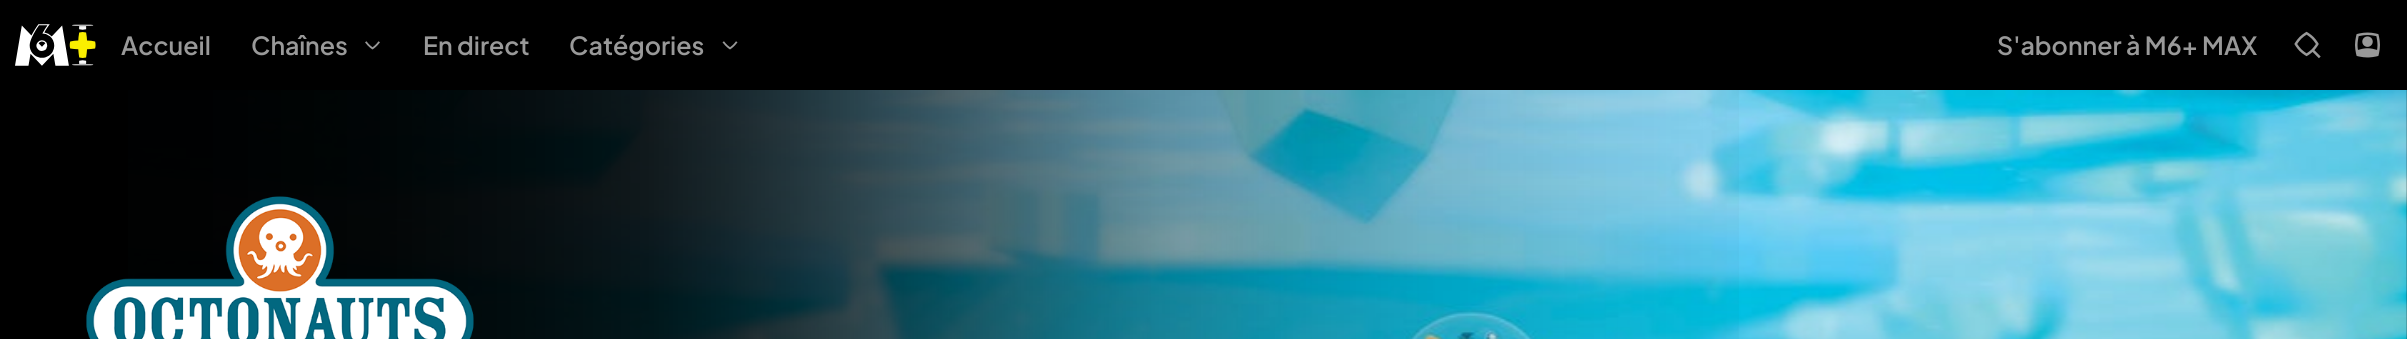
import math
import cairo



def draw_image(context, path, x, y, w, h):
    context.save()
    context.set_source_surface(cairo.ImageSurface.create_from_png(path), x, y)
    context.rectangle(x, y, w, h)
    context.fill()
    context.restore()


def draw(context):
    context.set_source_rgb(0, 0, 0)
    context.paint()
    draw_image(context, "images/1.png", 15, 24, 81, 42)
    draw_image(context, "images/2.png", 365, 41, 15, 9)
    draw_image(context, "images/3.png", 722, 41, 16, 9)
    draw_image(context, "images/4.png", 2294, 31, 27, 28)
    draw_image(context, "images/5.png", 2355, 32, 25, 26)
    draw_image(context, "images/7.png", 128, 90, 2279, 249)
    gradient = cairo.LinearGradient(0, 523, 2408, 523)
    gradient.add_color_stop_rgba(0, 0, 0, 0, 1)
    gradient.add_color_stop_rgba(0.09, 0, 0, 0, 0.99)
    gradient.add_color_stop_rgba(0.16, 0, 0, 0, 0.97)
    gradient.add_color_stop_rgba(0.22, 0, 0, 0, 0.93)
    gradient.add_color_stop_rgba(0.27, 0, 0, 0, 0.88)
    gradient.add_color_stop_rgba(0.3, 0, 0, 0, 0.82)
    gradient.add_color_stop_rgba(0.33, 0, 0, 0, 0.75)
    gradient.add_color_stop_rgba(0.36, 0, 0, 0, 0.67)
    gradient.add_color_stop_rgba(0.39, 0, 0, 0, 0.59)
    gradient.add_color_stop_rgba(0.42, 0, 0, 0, 0.5)
    gradient.add_color_stop_rgba(0.45, 0, 0, 0, 0.41)
    gradient.add_color_stop_rgba(0.48, 0, 0, 0, 0.33)
    gradient.add_color_stop_rgba(0.53, 0, 0, 0, 0.24)
    gradient.add_color_stop_rgba(0.59, 0, 0, 0, 0.15)
    gradient.add_color_stop_rgba(0.66, 0, 0, 0, 0.07)
    gradient.add_color_stop_rgba(0.75, 0, 0, 0, 0)
    context.set_source(gradient)
    context.rectangle(128, 90, 1611, 249)
    context.fill()
    draw_image(context, "images/6.png", 86, 196, 388, 143)
    context.select_font_face("Plus Jakarta Sans SemiBold")
    context.set_font_size(25)
    context.set_source_rgb(153 / 255, 153 / 255, 153 / 255)
    context.move_to(121, 55)
    context.show_text("Accueil")
    context.move_to(251, 55)
    context.show_text("Chaînes")
    context.move_to(423, 55)
    context.show_text("En direct")
    context.move_to(569, 55)
    context.show_text("Catégories")
    context.move_to(1997, 55)
    context.show_text("S'abonner à M6+ MAX")


surface = cairo.ImageSurface(cairo.Format.RGB24, 2407, 339)
context = cairo.Context(surface)
options = cairo.FontOptions()
options.set_hint_metrics(cairo.HintMetrics.OFF)
options.set_hint_style(cairo.HintStyle.NONE)
context.set_font_options(options)
context.set_miter_limit(4)
draw(context)
surface.write_to_png("out.png")
